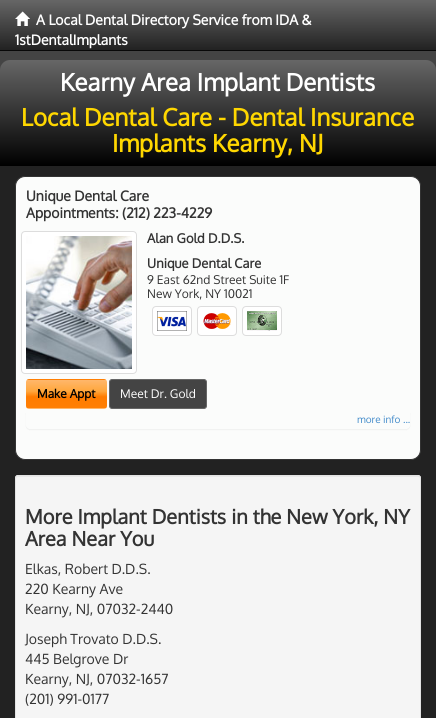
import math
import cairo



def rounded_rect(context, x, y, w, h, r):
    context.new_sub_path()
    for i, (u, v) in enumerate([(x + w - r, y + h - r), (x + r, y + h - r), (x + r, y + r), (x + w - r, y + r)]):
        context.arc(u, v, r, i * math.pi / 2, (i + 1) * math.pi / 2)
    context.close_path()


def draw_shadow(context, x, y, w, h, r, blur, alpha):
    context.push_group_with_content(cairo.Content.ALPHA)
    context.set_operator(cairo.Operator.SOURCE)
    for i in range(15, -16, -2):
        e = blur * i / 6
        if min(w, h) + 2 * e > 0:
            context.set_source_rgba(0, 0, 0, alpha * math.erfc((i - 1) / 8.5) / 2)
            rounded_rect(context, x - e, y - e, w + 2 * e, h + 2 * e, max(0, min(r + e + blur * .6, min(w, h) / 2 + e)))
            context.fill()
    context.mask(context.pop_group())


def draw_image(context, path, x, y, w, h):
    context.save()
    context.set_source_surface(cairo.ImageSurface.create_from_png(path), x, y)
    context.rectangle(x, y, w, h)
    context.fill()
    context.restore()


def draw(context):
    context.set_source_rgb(68 / 255, 68 / 255, 68 / 255)
    context.paint()
    gradient = cairo.LinearGradient(218, 0, 218, 50)
    gradient.add_color_stop_rgba(0, 102 / 255, 102 / 255, 102 / 255, 1)
    gradient.add_color_stop_rgba(1, 34 / 255, 34 / 255, 34 / 255, 1)
    context.set_source(gradient)
    context.rectangle(0, 0, 436, 50)
    context.fill()
    context.set_source_rgb(8 / 255, 8 / 255, 8 / 255)
    context.rectangle(0, 50, 436, 1)
    context.fill()
    draw_image(context, "images/1.png", 15, 11, 15, 15)
    gradient = cairo.LinearGradient(218, 60, 218, 166)
    gradient.add_color_stop_rgba(0, 102 / 255, 102 / 255, 102 / 255, 1)
    gradient.add_color_stop_rgba(1, 0, 0, 0, 1)
    context.set_source(gradient)
    context.new_path()
    context.move_to(10, 60)
    context.line_to(426, 60)
    context.curve_to(431.5, 60, 436, 64.5, 436, 70)
    context.line_to(436, 166)
    context.line_to(0, 166)
    context.line_to(0, 70)
    context.curve_to(0, 64.5, 4.5, 60, 10, 60)
    context.close_path()
    context.fill()
    context.set_source_rgb(34 / 255, 34 / 255, 34 / 255)
    context.rectangle(0, 166, 436, 552)
    context.fill()
    context.set_source_rgb(251 / 255, 252 / 255, 251 / 255)
    rounded_rect(context, 15.5, 176.5, 405, 283, 9.5)
    context.fill_preserve()
    context.set_source_rgb(51 / 255, 51 / 255, 51 / 255)
    context.set_line_width(1)
    context.stroke()
    context.set_source_rgb(1, 1, 1)
    rounded_rect(context, 21.5, 231.5, 115, 142, 3.5)
    context.fill_preserve()
    context.set_source_rgb(221 / 255, 221 / 255, 221 / 255)
    context.stroke()
    draw_image(context, "images/2.png", 26, 236, 106, 133)
    context.set_source_rgb(1, 1, 1)
    rounded_rect(context, 152.5, 306.5, 39, 29, 3.5)
    context.fill_preserve()
    context.set_source_rgb(221 / 255, 221 / 255, 221 / 255)
    context.stroke()
    draw_image(context, "images/3.png", 157, 311, 30, 20)
    context.set_source_rgb(1, 1, 1)
    rounded_rect(context, 197.5, 306.5, 39, 29, 3.5)
    context.fill_preserve()
    context.set_source_rgb(221 / 255, 221 / 255, 221 / 255)
    context.stroke()
    draw_image(context, "images/4.png", 203, 313, 28, 16)
    context.set_source_rgb(1, 1, 1)
    rounded_rect(context, 242.5, 306.5, 39, 29, 3.5)
    context.fill_preserve()
    context.set_source_rgb(221 / 255, 221 / 255, 221 / 255)
    context.stroke()
    draw_image(context, "images/5.png", 247, 311, 30, 20)
    context.save()
    rounded_rect(context, 26, 379, 81, 30, 3)
    context.clip()
    gradient = cairo.LinearGradient(67, 352, 67, 380)
    gradient.add_color_stop_rgba(0, 1, 183 / 255, 107 / 255, 1)
    gradient.add_color_stop_rgba(0.4, 1, 167 / 255, 61 / 255, 1)
    gradient.add_color_stop_rgba(0.6, 1, 124 / 255, 0, 1)
    gradient.add_color_stop_rgba(1, 1, 127 / 255, 4 / 255, 1)
    context.set_source(gradient)
    context.rectangle(26, 379, 81, 1)
    context.fill()
    gradient = cairo.LinearGradient(67, 380, 67, 408)
    gradient.add_color_stop_rgba(0, 1, 183 / 255, 107 / 255, 1)
    gradient.add_color_stop_rgba(0.4, 1, 167 / 255, 61 / 255, 1)
    gradient.add_color_stop_rgba(0.6, 1, 124 / 255, 0, 1)
    gradient.add_color_stop_rgba(1, 1, 127 / 255, 4 / 255, 1)
    context.set_source(gradient)
    context.rectangle(26, 380, 81, 28)
    context.fill()
    gradient = cairo.LinearGradient(67, 408, 67, 436)
    gradient.add_color_stop_rgba(0, 1, 183 / 255, 107 / 255, 1)
    gradient.add_color_stop_rgba(0.4, 1, 167 / 255, 61 / 255, 1)
    gradient.add_color_stop_rgba(0.6, 1, 124 / 255, 0, 1)
    gradient.add_color_stop_rgba(1, 1, 127 / 255, 4 / 255, 1)
    context.set_source(gradient)
    context.rectangle(26, 408, 81, 1)
    context.fill()
    context.restore()
    context.set_source_rgb(68 / 255, 68 / 255, 68 / 255)
    rounded_rect(context, 109.5, 379.5, 97, 29, 2.5)
    context.fill_preserve()
    context.set_source_rgb(102 / 255, 102 / 255, 102 / 255)
    context.stroke()
    context.save()
    context.set_fill_rule(cairo.FillRule.EVEN_ODD)
    context.new_path()
    context.move_to(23, 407)
    context.line_to(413, 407)
    context.line_to(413, 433)
    context.line_to(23, 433)
    context.close_path()
    context.move_to(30, 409)
    context.line_to(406, 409)
    context.curve_to(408, 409, 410, 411, 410, 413)
    context.line_to(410, 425)
    context.curve_to(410, 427, 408, 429, 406, 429)
    context.line_to(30, 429)
    context.curve_to(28, 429, 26, 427, 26, 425)
    context.line_to(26, 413)
    context.curve_to(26, 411, 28, 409, 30, 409)
    context.close_path()
    context.clip()
    context.set_source_rgb(0, 0, 0)
    draw_shadow(context, 26, 410, 384, 20, 4, 0.5, 0.05)
    context.restore()
    context.set_source_rgb(245 / 255, 245 / 255, 245 / 255)
    rounded_rect(context, 15, 475, 406, 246, 3)
    context.fill()
    context.set_source_rgb(233 / 255, 233 / 255, 233 / 255)
    context.new_path()
    context.move_to(18, 477)
    context.line_to(418, 477)
    context.curve_to(419, 477, 420, 478, 420, 479)
    context.curve_to(420, 478, 420, 477, 419, 476)
    context.line_to(18, 476)
    context.line_to(16, 477)
    context.line_to(16, 479)
    context.curve_to(16, 478, 17, 477, 18, 477)
    context.close_path()
    context.fill()
    rounded_rect(context, 15.5, 475.5, 405, 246, 2.5)
    context.set_source_rgb(227 / 255, 227 / 255, 227 / 255)
    context.stroke()
    context.select_font_face("Oxygen", cairo.FontSlant.NORMAL, cairo.FontWeight.BOLD)
    context.set_font_size(14)
    context.set_source_rgb(1, 1, 1)
    context.move_to(36, 25)
    context.show_text("A Local Dental Directory Service from IDA &")
    context.move_to(15, 45)
    context.show_text("1stDentalImplants")
    context.set_font_size(24)
    context.move_to(60, 91)
    context.show_text("Kearny Area Implant Dentists")
    context.set_source_rgb(1, 215 / 255, 0)
    context.move_to(21, 126)
    context.show_text("Local Dental Care - Dental Insurance")
    context.move_to(112, 152)
    context.show_text("Implants Kearny, NJ")
    context.set_font_size(14)
    context.set_source_rgb(51 / 255, 51 / 255, 51 / 255)
    context.move_to(26, 201)
    context.show_text("Unique Dental Care")
    context.move_to(26, 218)
    context.show_text("Appointments: (212) 223-4229")
    context.set_font_size(13)
    context.move_to(147, 243)
    context.show_text("Alan Gold D.D.S.")
    context.move_to(147, 268)
    context.show_text("Unique Dental Care")
    context.select_font_face("Oxygen")
    context.set_font_size(12)
    context.move_to(147, 284)
    context.show_text("9 East 62nd Street Suite 1F")
    context.move_to(147, 298)
    context.show_text("New York, NY 10021")
    context.select_font_face("Oxygen", cairo.FontSlant.NORMAL, cairo.FontWeight.BOLD)
    context.set_source_rgb(0, 0, 0)
    context.move_to(37, 398)
    context.show_text("Make Appt")
    context.select_font_face("Oxygen")
    context.set_source_rgb(1, 1, 1)
    context.move_to(120, 398)
    context.show_text("Meet Dr. Gold")
    context.set_font_size(10)
    context.set_source_rgb(66 / 255, 139 / 255, 202 / 255)
    context.move_to(357, 423)
    context.show_text("more info ...")
    context.select_font_face("Oxygen", cairo.FontSlant.NORMAL, cairo.FontWeight.BOLD)
    context.set_font_size(20)
    context.set_source_rgb(51 / 255, 51 / 255, 51 / 255)
    context.move_to(25, 524)
    context.show_text("More Implant Dentists in the New York, NY")
    context.move_to(25, 546)
    context.show_text("Area Near You")
    context.select_font_face("Oxygen")
    context.set_font_size(14)
    context.move_to(25, 574)
    context.show_text("Elkas, Robert D.D.S.")
    context.move_to(25, 594)
    context.show_text("220 Kearny Ave")
    context.move_to(25, 614)
    context.show_text("Kearny, NJ, 07032-2440")
    context.move_to(25, 644)
    context.show_text("Joseph Trovato D.D.S.")
    context.move_to(25, 664)
    context.show_text("445 Belgrove Dr")
    context.move_to(25, 684)
    context.show_text("Kearny, NJ, 07032-1657")
    context.move_to(25, 704)
    context.show_text("(201) 991-0177")


surface = cairo.ImageSurface(cairo.Format.RGB24, 436, 718)
context = cairo.Context(surface)
options = cairo.FontOptions()
options.set_hint_metrics(cairo.HintMetrics.OFF)
options.set_hint_style(cairo.HintStyle.NONE)
context.set_font_options(options)
context.set_miter_limit(4)
draw(context)
surface.write_to_png("out.png")
